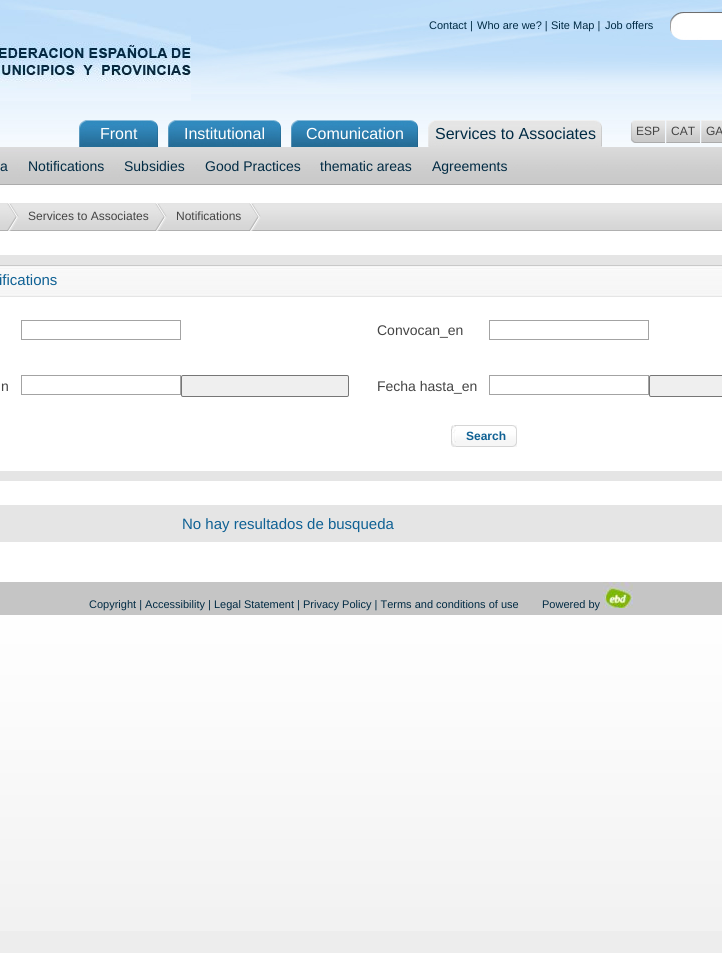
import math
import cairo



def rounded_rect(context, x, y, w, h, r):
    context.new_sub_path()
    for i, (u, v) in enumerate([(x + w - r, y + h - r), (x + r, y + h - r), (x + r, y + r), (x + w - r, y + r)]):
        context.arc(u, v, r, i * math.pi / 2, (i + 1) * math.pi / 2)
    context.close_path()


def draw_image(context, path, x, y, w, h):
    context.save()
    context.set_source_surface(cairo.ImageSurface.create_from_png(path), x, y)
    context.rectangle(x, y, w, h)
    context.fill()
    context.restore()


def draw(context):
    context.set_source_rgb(237 / 255, 237 / 255, 237 / 255)
    context.paint()
    draw_image(context, "images/1.png", 0, 94, 722, 837)
    draw_image(context, "images/2.png", 0, 0, 722, 94)
    draw_image(context, "images/3.png", 0, 10, 191, 91)
    draw_image(context, "images/4.png", 670, 12, 52, 28)
    draw_image(context, "images/5.png", 428, 120, 174, 27)
    draw_image(context, "images/6.png", 0, 147, 722, 38)
    draw_image(context, "images/7.png", 79, 120, 79, 27)
    draw_image(context, "images/8.png", 168, 120, 113, 27)
    draw_image(context, "images/9.png", 291, 120, 127, 27)
    draw_image(context, "images/10.png", 631, 120, 34, 23)
    draw_image(context, "images/11.png", 666, 120, 34, 23)
    draw_image(context, "images/12.png", 701, 120, 21, 23)
    draw_image(context, "images/13.png", 0, 203, 722, 28)
    draw_image(context, "images/14.png", 7, 203, 12, 28)
    draw_image(context, "images/14.png", 155, 203, 12, 28)
    draw_image(context, "images/14.png", 249, 203, 12, 28)
    context.set_source_rgb(229 / 255, 229 / 255, 229 / 255)
    context.rectangle(0, 255, 722, 10)
    context.fill()
    context.rectangle(0, 296, 722, 1)
    context.fill()
    draw_image(context, "images/15.png", 0, 265, 722, 31)
    context.rectangle(21.5, 320.5, 159, 19)
    context.set_source_rgb(163 / 255, 163 / 255, 163 / 255)
    context.set_line_width(1)
    context.stroke()
    context.rectangle(489.5, 320.5, 159, 19)
    context.stroke()
    context.rectangle(21.5, 375.5, 159, 19)
    context.stroke()
    context.set_source_rgb(239 / 255, 239 / 255, 239 / 255)
    rounded_rect(context, 181.5, 375.5, 167, 21, 1.5)
    context.fill_preserve()
    context.set_source_rgb(118 / 255, 118 / 255, 118 / 255)
    context.stroke()
    context.rectangle(489.5, 375.5, 159, 19)
    context.set_source_rgb(163 / 255, 163 / 255, 163 / 255)
    context.stroke()
    context.set_source_rgb(239 / 255, 239 / 255, 239 / 255)
    rounded_rect(context, 649.5, 375.5, 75, 21, 1.5)
    context.fill_preserve()
    context.set_source_rgb(118 / 255, 118 / 255, 118 / 255)
    context.stroke()
    draw_image(context, "images/16.png", 456, 425, 61, 22)
    draw_image(context, "images/17.png", 451, 425, 5, 22)
    context.set_source_rgb(229 / 255, 229 / 255, 229 / 255)
    context.rectangle(0, 471, 722, 10)
    context.fill()
    context.rectangle(0, 505, 722, 37)
    context.fill()
    context.set_source_rgb(197 / 255, 197 / 255, 197 / 255)
    context.rectangle(0, 582, 722, 33)
    context.fill()
    draw_image(context, "images/18.png", 603, 582, 30, 26)
    context.select_font_face("Liberation Sans")
    context.set_font_size(11)
    context.set_source_rgb(1 / 255, 43 / 255, 68 / 255)
    context.move_to(429, 29)
    context.show_text("Contact |")
    context.move_to(477, 29)
    context.show_text("Who are we? |")
    context.move_to(551, 29)
    context.show_text("Site Map |")
    context.move_to(605, 29)
    context.show_text("Job offers")
    context.set_font_size(16)
    context.move_to(435, 139)
    context.show_text("Services to Associates")
    context.set_font_size(14)
    context.move_to(0, 171)
    context.show_text("a")
    context.move_to(28, 171)
    context.show_text("Notifications")
    context.move_to(124, 171)
    context.show_text("Subsidies")
    context.move_to(205, 171)
    context.show_text("Good Practices")
    context.move_to(320, 171)
    context.show_text("thematic areas")
    context.move_to(432, 171)
    context.show_text("Agreements")
    context.set_font_size(16)
    context.set_source_rgb(1, 1, 1)
    context.move_to(100, 139)
    context.show_text("Front")
    context.move_to(184, 139)
    context.show_text("Institutional")
    context.move_to(306, 139)
    context.show_text("Comunication")
    context.set_font_size(12)
    context.set_source_rgb(68 / 255, 68 / 255, 68 / 255)
    context.move_to(636, 135)
    context.show_text("ESP")
    context.move_to(671, 135)
    context.show_text("CAT")
    context.move_to(706, 135)
    context.show_text("GA")
    context.move_to(28, 220)
    context.show_text("Services to Associates")
    context.move_to(176, 220)
    context.show_text("Notifications")
    context.set_font_size(15)
    context.set_source_rgb(15 / 255, 97 / 255, 148 / 255)
    context.move_to(-1, 285)
    context.show_text("ifications")
    context.set_font_size(14)
    context.set_source_rgb(68 / 255, 68 / 255, 68 / 255)
    context.move_to(377, 335)
    context.show_text("Convocan_en")
    context.move_to(1, 391)
    context.show_text("n")
    context.move_to(377, 391)
    context.show_text("Fecha hasta_en")
    context.select_font_face("Liberation Sans", cairo.FontSlant.NORMAL, cairo.FontWeight.BOLD)
    context.set_font_size(12)
    context.set_source_rgb(15 / 255, 97 / 255, 148 / 255)
    context.move_to(466, 440)
    context.show_text("Search")
    context.select_font_face("Liberation Sans")
    context.set_font_size(15)
    context.move_to(182, 529)
    context.show_text("No hay resultados de busqueda")
    context.set_font_size(11)
    context.set_source_rgb(1 / 255, 43 / 255, 68 / 255)
    context.move_to(89, 608)
    context.show_text("Copyright | Accessibility | Legal Statement | Privacy Policy | Terms and conditions of use")
    context.move_to(542, 608)
    context.show_text("Powered by")


surface = cairo.ImageSurface(cairo.Format.RGB24, 722, 953)
context = cairo.Context(surface)
options = cairo.FontOptions()
options.set_hint_metrics(cairo.HintMetrics.OFF)
options.set_hint_style(cairo.HintStyle.NONE)
context.set_font_options(options)
context.set_miter_limit(4)
draw(context)
surface.write_to_png("out.png")
